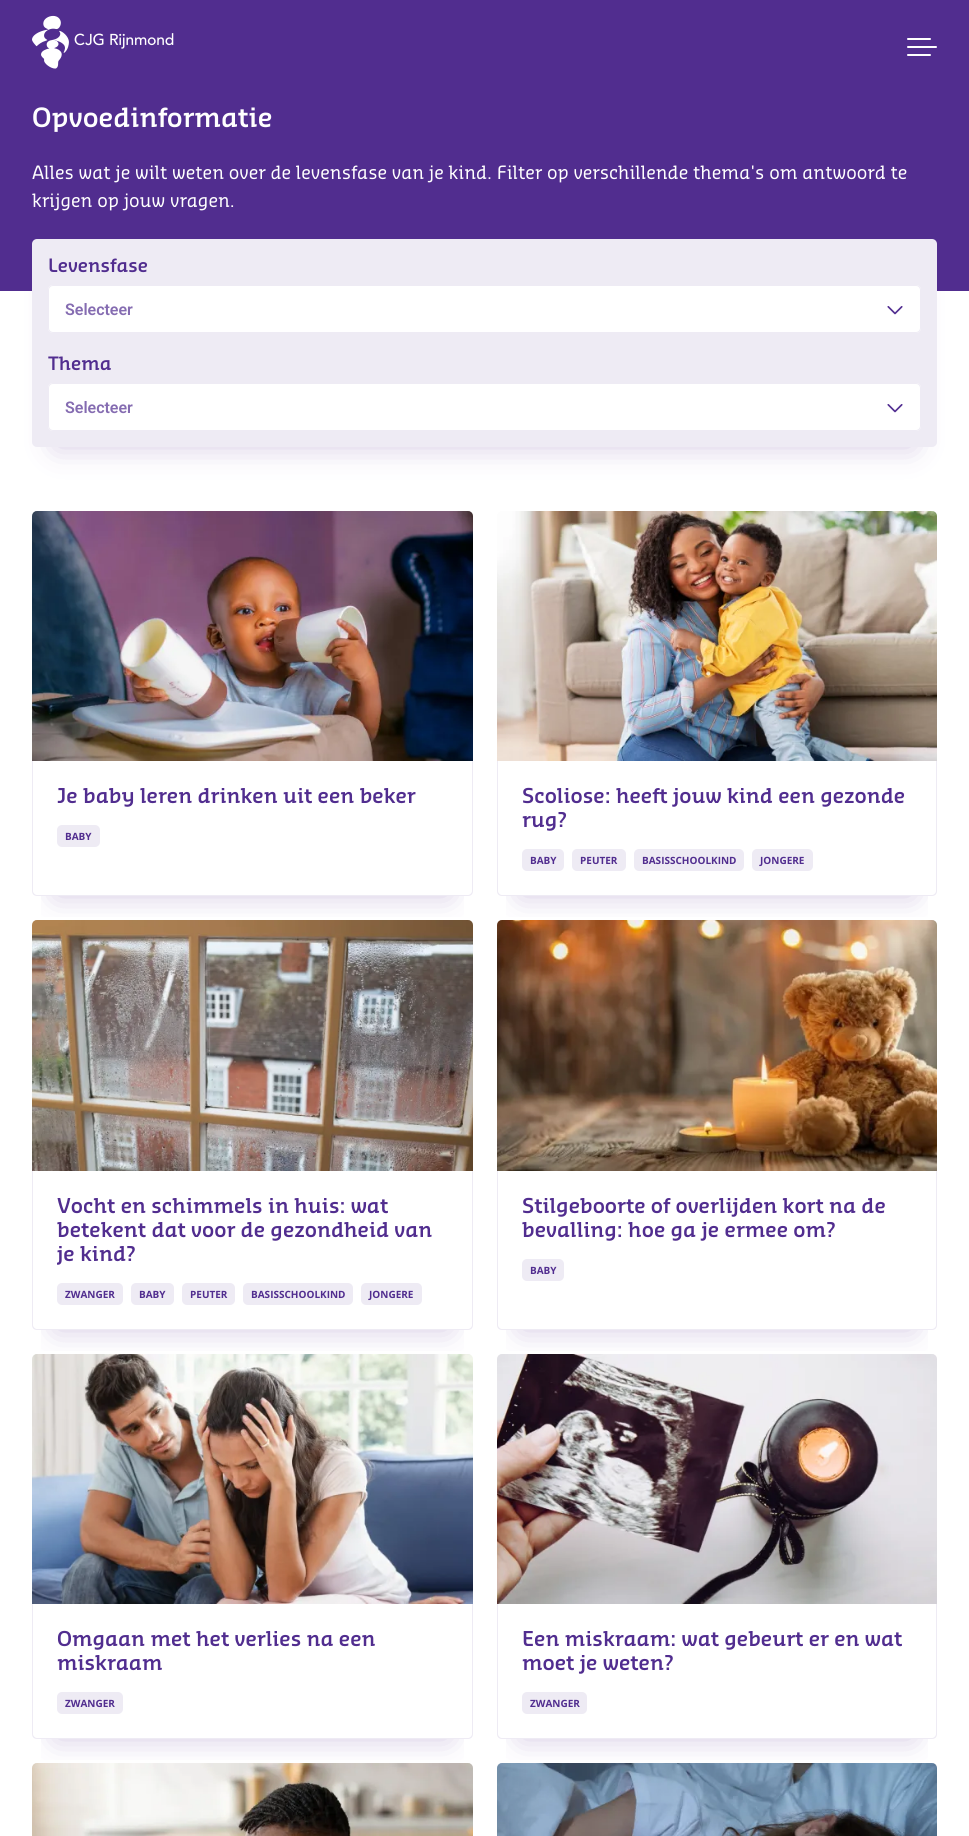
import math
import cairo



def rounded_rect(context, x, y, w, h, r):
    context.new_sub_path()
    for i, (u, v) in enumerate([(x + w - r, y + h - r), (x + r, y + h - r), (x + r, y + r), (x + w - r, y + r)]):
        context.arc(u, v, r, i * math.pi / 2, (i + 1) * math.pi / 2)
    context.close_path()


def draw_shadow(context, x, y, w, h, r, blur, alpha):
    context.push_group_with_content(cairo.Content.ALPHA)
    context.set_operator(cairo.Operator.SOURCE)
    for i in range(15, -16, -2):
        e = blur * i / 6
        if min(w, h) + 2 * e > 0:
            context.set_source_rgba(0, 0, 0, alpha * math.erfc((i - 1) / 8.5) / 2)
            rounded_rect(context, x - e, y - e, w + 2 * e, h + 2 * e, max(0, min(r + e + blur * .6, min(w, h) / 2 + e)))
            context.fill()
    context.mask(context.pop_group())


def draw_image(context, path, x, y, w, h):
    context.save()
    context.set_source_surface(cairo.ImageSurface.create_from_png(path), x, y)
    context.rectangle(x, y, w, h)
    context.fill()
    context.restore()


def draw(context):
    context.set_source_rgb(1, 1, 1)
    context.paint()
    context.set_source_rgb(81 / 255, 45 / 255, 143 / 255)
    context.rectangle(0, 0, 969, 291)
    context.fill()
    draw_image(context, "images/1.png", 32, 15, 142, 54)
    context.set_source_rgb(1, 1, 1)
    rounded_rect(context, 907, 38, 24, 2, 1)
    context.fill()
    rounded_rect(context, 907, 46, 30, 2, 1)
    context.fill()
    rounded_rect(context, 907, 54, 24, 2, 1)
    context.fill()
    context.set_source_rgb(84 / 255, 39 / 255, 145 / 255)
    draw_shadow(context, 56, 287, 857, 160, 0, 15, 0.25)
    context.set_source_rgb(238 / 255, 235 / 255, 244 / 255)
    rounded_rect(context, 32, 239, 905, 208, 5)
    context.fill()
    context.set_source_rgb(1, 1, 1)
    rounded_rect(context, 48, 285, 873, 48, 5)
    context.fill()
    draw_image(context, "images/2.png", 887, 306, 16, 9)
    rounded_rect(context, 48.5, 285.5, 872, 47, 4.5)
    context.set_source_rgb(238 / 255, 235 / 255, 244 / 255)
    context.set_line_width(1)
    context.stroke()
    context.set_source_rgb(1, 1, 1)
    rounded_rect(context, 48, 383, 873, 48, 5)
    context.fill()
    draw_image(context, "images/2.png", 887, 404, 16, 9)
    rounded_rect(context, 48.5, 383.5, 872, 47, 4.5)
    context.set_source_rgb(238 / 255, 235 / 255, 244 / 255)
    context.stroke()
    draw_image(context, "images/3.png", 32, 511, 441, 250)
    context.save()
    context.rectangle(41, 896, 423, 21)
    context.clip()
    context.set_source_rgb(84 / 255, 39 / 255, 145 / 255)
    draw_shadow(context, 56, 809, 393, 87, 0, 15, 0.25)
    context.restore()
    context.set_fill_rule(cairo.FillRule.EVEN_ODD)
    context.new_path()
    context.move_to(32, 761)
    context.line_to(473, 761)
    context.line_to(473, 891)
    context.curve_to(473, 894, 471, 896, 468, 896)
    context.line_to(37, 896)
    context.curve_to(34, 896, 32, 894, 32, 891)
    context.close_path()
    context.move_to(33, 761)
    context.line_to(472, 761)
    context.line_to(472, 891)
    context.curve_to(472, 893, 470, 895, 468, 895)
    context.line_to(37, 895)
    context.curve_to(35, 895, 33, 893, 33, 891)
    context.close_path()
    context.fill()
    rounded_rect(context, 57, 825, 43, 22, 5)
    context.fill()
    draw_image(context, "images/4.png", 497, 511, 440, 250)
    context.save()
    context.set_fill_rule(cairo.FillRule.WINDING)
    context.rectangle(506, 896, 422, 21)
    context.clip()
    context.set_source_rgb(84 / 255, 39 / 255, 145 / 255)
    draw_shadow(context, 521, 809, 392, 87, 0, 15, 0.25)
    context.restore()
    context.new_path()
    context.move_to(497, 761)
    context.line_to(937, 761)
    context.line_to(937, 891)
    context.curve_to(937, 894, 935, 896, 932, 896)
    context.line_to(502, 896)
    context.curve_to(499, 896, 497, 894, 497, 891)
    context.close_path()
    context.move_to(498, 761)
    context.line_to(936, 761)
    context.line_to(936, 891)
    context.curve_to(936, 893, 934, 895, 932, 895)
    context.line_to(502, 895)
    context.curve_to(500, 895, 498, 893, 498, 891)
    context.close_path()
    context.fill()
    rounded_rect(context, 522, 849, 42, 22, 5)
    context.fill()
    rounded_rect(context, 572, 849, 54, 22, 5)
    context.fill()
    rounded_rect(context, 634, 849, 110, 22, 5)
    context.fill()
    rounded_rect(context, 752, 849, 61, 22, 5)
    context.fill()
    draw_image(context, "images/5.png", 32, 920, 441, 251)
    context.save()
    context.set_fill_rule(cairo.FillRule.WINDING)
    context.rectangle(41, 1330, 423, 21)
    context.clip()
    context.set_source_rgb(84 / 255, 39 / 255, 145 / 255)
    draw_shadow(context, 56, 1219, 393, 111, 0, 15, 0.25)
    context.restore()
    context.new_path()
    context.move_to(32, 1171)
    context.line_to(473, 1171)
    context.line_to(473, 1325)
    context.curve_to(473, 1328, 471, 1330, 468, 1330)
    context.line_to(37, 1330)
    context.curve_to(34, 1330, 32, 1328, 32, 1325)
    context.close_path()
    context.move_to(33, 1171)
    context.line_to(472, 1171)
    context.line_to(472, 1325)
    context.curve_to(472, 1327, 470, 1329, 468, 1329)
    context.line_to(37, 1329)
    context.curve_to(35, 1329, 33, 1327, 33, 1325)
    context.close_path()
    context.fill()
    rounded_rect(context, 57, 1283, 66, 22, 5)
    context.fill()
    rounded_rect(context, 131, 1283, 43, 22, 5)
    context.fill()
    rounded_rect(context, 182, 1283, 53, 22, 5)
    context.fill()
    rounded_rect(context, 243, 1283, 110, 22, 5)
    context.fill()
    rounded_rect(context, 361, 1283, 61, 22, 5)
    context.fill()
    draw_image(context, "images/6.png", 497, 920, 440, 251)
    context.save()
    context.set_fill_rule(cairo.FillRule.WINDING)
    context.rectangle(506, 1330, 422, 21)
    context.clip()
    context.set_source_rgb(84 / 255, 39 / 255, 145 / 255)
    draw_shadow(context, 521, 1219, 392, 111, 0, 15, 0.25)
    context.restore()
    context.new_path()
    context.move_to(497, 1171)
    context.line_to(937, 1171)
    context.line_to(937, 1325)
    context.curve_to(937, 1328, 935, 1330, 932, 1330)
    context.line_to(502, 1330)
    context.curve_to(499, 1330, 497, 1328, 497, 1325)
    context.close_path()
    context.move_to(498, 1171)
    context.line_to(936, 1171)
    context.line_to(936, 1325)
    context.curve_to(936, 1327, 934, 1329, 932, 1329)
    context.line_to(502, 1329)
    context.curve_to(500, 1329, 498, 1327, 498, 1325)
    context.close_path()
    context.fill()
    rounded_rect(context, 522, 1259, 42, 22, 5)
    context.fill()
    draw_image(context, "images/7.png", 32, 1354, 441, 250)
    context.save()
    context.set_fill_rule(cairo.FillRule.WINDING)
    context.rectangle(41, 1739, 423, 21)
    context.clip()
    context.set_source_rgb(84 / 255, 39 / 255, 145 / 255)
    draw_shadow(context, 56, 1652, 393, 87, 0, 15, 0.25)
    context.restore()
    context.new_path()
    context.move_to(32, 1604)
    context.line_to(473, 1604)
    context.line_to(473, 1734)
    context.curve_to(473, 1737, 471, 1739, 468, 1739)
    context.line_to(37, 1739)
    context.curve_to(34, 1739, 32, 1737, 32, 1734)
    context.close_path()
    context.move_to(33, 1604)
    context.line_to(472, 1604)
    context.line_to(472, 1734)
    context.curve_to(472, 1736, 470, 1738, 468, 1738)
    context.line_to(37, 1738)
    context.curve_to(35, 1738, 33, 1736, 33, 1734)
    context.close_path()
    context.fill()
    rounded_rect(context, 57, 1692, 66, 22, 5)
    context.fill()
    draw_image(context, "images/8.png", 497, 1354, 440, 250)
    context.save()
    context.set_fill_rule(cairo.FillRule.WINDING)
    context.rectangle(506, 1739, 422, 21)
    context.clip()
    context.set_source_rgb(84 / 255, 39 / 255, 145 / 255)
    draw_shadow(context, 521, 1652, 392, 87, 0, 15, 0.25)
    context.restore()
    context.new_path()
    context.move_to(497, 1604)
    context.line_to(937, 1604)
    context.line_to(937, 1734)
    context.curve_to(937, 1737, 935, 1739, 932, 1739)
    context.line_to(502, 1739)
    context.curve_to(499, 1739, 497, 1737, 497, 1734)
    context.close_path()
    context.move_to(498, 1604)
    context.line_to(936, 1604)
    context.line_to(936, 1734)
    context.curve_to(936, 1736, 934, 1738, 932, 1738)
    context.line_to(502, 1738)
    context.curve_to(500, 1738, 498, 1736, 498, 1734)
    context.close_path()
    context.fill()
    rounded_rect(context, 522, 1692, 65, 22, 5)
    context.fill()
    draw_image(context, "images/9.png", 32, 1763, 441, 73)
    draw_image(context, "images/10.png", 497, 1763, 440, 73)
    context.select_font_face("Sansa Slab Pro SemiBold")
    context.set_font_size(26)
    context.set_source_rgb(1, 1, 1)
    context.move_to(32, 127)
    context.show_text("Opvoedinformatie")
    context.select_font_face("Sansa Slab Pro")
    context.set_font_size(18)
    context.move_to(32, 179)
    context.show_text("Alles wat je wilt weten over de levensfase van je kind. Filter op verschillende thema's om antwoord te")
    context.move_to(32, 207)
    context.show_text("krijgen op jouw vragen.")
    context.select_font_face("Sansa Slab Pro SemiBold")
    context.set_source_rgb(81 / 255, 45 / 255, 143 / 255)
    context.move_to(48, 272)
    context.show_text("Levensfase")
    context.select_font_face("Roboto SemiBold")
    context.set_font_size(16)
    context.set_source_rgb(133 / 255, 108 / 255, 177 / 255)
    context.move_to(65, 315)
    context.show_text("Selecteer")
    context.select_font_face("Sansa Slab Pro SemiBold")
    context.set_font_size(18)
    context.set_source_rgb(81 / 255, 45 / 255, 143 / 255)
    context.move_to(48, 370)
    context.show_text("Thema")
    context.select_font_face("Roboto SemiBold")
    context.set_font_size(16)
    context.set_source_rgb(133 / 255, 108 / 255, 177 / 255)
    context.move_to(65, 413)
    context.show_text("Selecteer")
    context.select_font_face("Sansa Slab Pro SemiBold")
    context.set_font_size(20)
    context.set_source_rgb(81 / 255, 45 / 255, 143 / 255)
    context.move_to(57, 803)
    context.show_text("Je baby leren drinken uit een beker")
    context.select_font_face("Open Sans", cairo.FontSlant.NORMAL, cairo.FontWeight.BOLD)
    context.set_font_size(10)
    context.move_to(65, 840)
    context.show_text("BABY")
    context.select_font_face("Sansa Slab Pro SemiBold")
    context.set_font_size(20)
    context.move_to(522, 803)
    context.show_text("Scoliose: heeft jouw kind een gezonde")
    context.move_to(522, 827)
    context.show_text("rug?")
    context.select_font_face("Open Sans", cairo.FontSlant.NORMAL, cairo.FontWeight.BOLD)
    context.set_font_size(10)
    context.move_to(530, 864)
    context.show_text("BABY")
    context.move_to(580, 864)
    context.show_text("PEUTER")
    context.move_to(642, 864)
    context.show_text("BASISSCHOOLKIND")
    context.move_to(760, 864)
    context.show_text("JONGERE")
    context.select_font_face("Sansa Slab Pro SemiBold")
    context.set_font_size(20)
    context.move_to(57, 1213)
    context.show_text("Vocht en schimmels in huis: wat")
    context.move_to(57, 1237)
    context.show_text("betekent dat voor de gezondheid van")
    context.save()
    context.set_fill_rule(cairo.FillRule.WINDING)
    context.rectangle(57, 1195, 391, 72)
    context.clip()
    context.move_to(57, 1261)
    context.show_text("je kind?")
    context.restore()
    context.select_font_face("Open Sans", cairo.FontSlant.NORMAL, cairo.FontWeight.BOLD)
    context.set_font_size(10)
    context.move_to(65, 1298)
    context.show_text("ZWANGER")
    context.move_to(139, 1298)
    context.show_text("BABY")
    context.move_to(190, 1298)
    context.show_text("PEUTER")
    context.move_to(251, 1298)
    context.show_text("BASISSCHOOLKIND")
    context.move_to(369, 1298)
    context.show_text("JONGERE")
    context.select_font_face("Sansa Slab Pro SemiBold")
    context.set_font_size(20)
    context.move_to(522, 1213)
    context.show_text("Stilgeboorte of overlijden kort na de")
    context.move_to(522, 1237)
    context.show_text("bevalling: hoe ga je ermee om?")
    context.select_font_face("Open Sans", cairo.FontSlant.NORMAL, cairo.FontWeight.BOLD)
    context.set_font_size(10)
    context.move_to(530, 1274)
    context.show_text("BABY")
    context.select_font_face("Sansa Slab Pro SemiBold")
    context.set_font_size(20)
    context.move_to(57, 1646)
    context.show_text("Omgaan met het verlies na een")
    context.move_to(57, 1670)
    context.show_text("miskraam")
    context.select_font_face("Open Sans", cairo.FontSlant.NORMAL, cairo.FontWeight.BOLD)
    context.set_font_size(10)
    context.move_to(65, 1707)
    context.show_text("ZWANGER")
    context.select_font_face("Sansa Slab Pro SemiBold")
    context.set_font_size(20)
    context.move_to(522, 1646)
    context.show_text("Een miskraam: wat gebeurt er en wat")
    context.move_to(522, 1670)
    context.show_text("moet je weten?")
    context.select_font_face("Open Sans", cairo.FontSlant.NORMAL, cairo.FontWeight.BOLD)
    context.set_font_size(10)
    context.move_to(530, 1707)
    context.show_text("ZWANGER")


surface = cairo.ImageSurface(cairo.Format.RGB24, 969, 1836)
context = cairo.Context(surface)
options = cairo.FontOptions()
options.set_hint_metrics(cairo.HintMetrics.OFF)
options.set_hint_style(cairo.HintStyle.NONE)
context.set_font_options(options)
context.set_miter_limit(4)
draw(context)
surface.write_to_png("out.png")
